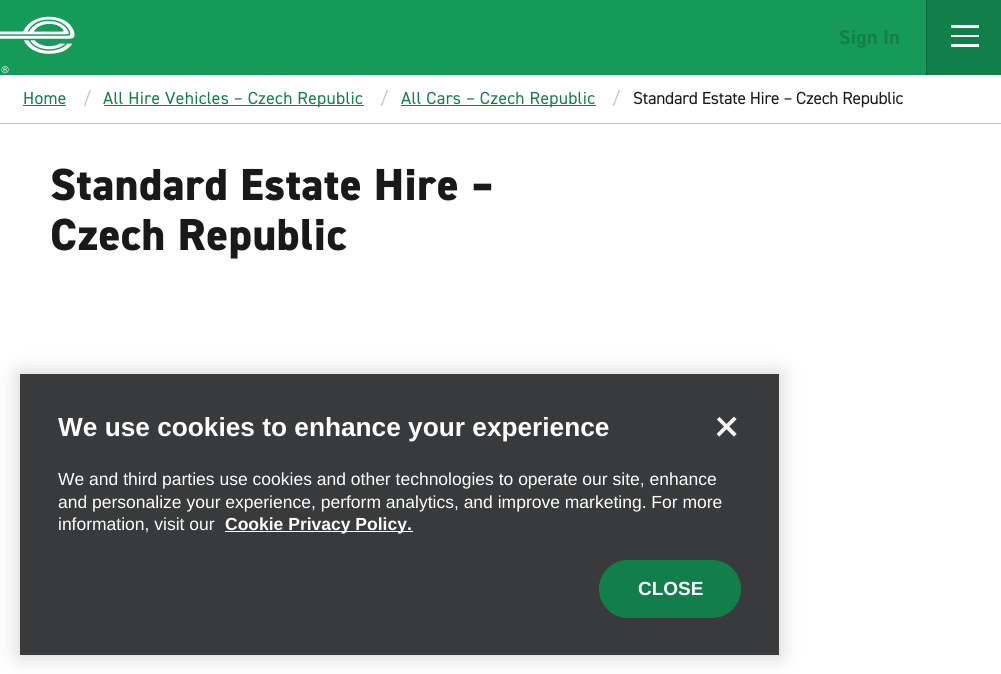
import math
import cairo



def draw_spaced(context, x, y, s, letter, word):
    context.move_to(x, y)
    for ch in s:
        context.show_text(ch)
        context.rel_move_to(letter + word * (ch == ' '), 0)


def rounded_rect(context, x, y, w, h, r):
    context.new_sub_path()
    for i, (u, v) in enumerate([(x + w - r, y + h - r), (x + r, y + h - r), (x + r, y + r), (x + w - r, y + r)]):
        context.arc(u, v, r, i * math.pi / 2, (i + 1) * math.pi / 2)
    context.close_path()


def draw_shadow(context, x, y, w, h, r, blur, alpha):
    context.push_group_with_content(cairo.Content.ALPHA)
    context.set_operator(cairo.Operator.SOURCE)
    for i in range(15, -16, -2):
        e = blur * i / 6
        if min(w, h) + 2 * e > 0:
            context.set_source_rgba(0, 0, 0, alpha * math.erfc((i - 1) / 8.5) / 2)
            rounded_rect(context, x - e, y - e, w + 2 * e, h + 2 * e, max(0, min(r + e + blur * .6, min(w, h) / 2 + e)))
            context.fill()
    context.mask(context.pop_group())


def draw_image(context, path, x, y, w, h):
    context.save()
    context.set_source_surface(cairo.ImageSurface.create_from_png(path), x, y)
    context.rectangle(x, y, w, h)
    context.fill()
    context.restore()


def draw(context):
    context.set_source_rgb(1, 1, 1)
    context.paint()
    context.set_source_rgb(22 / 255, 154 / 255, 90 / 255)
    context.rectangle(0, 0, 926, 75)
    context.fill()
    draw_image(context, "images/1.png", 0, 16, 75, 58)
    context.set_source_rgb(18 / 255, 127 / 255, 74 / 255)
    context.rectangle(927, 0, 74, 75)
    context.fill()
    context.set_source_rgb(0, 102 / 255, 57 / 255)
    context.rectangle(926, 0, 1, 75)
    context.fill()
    context.set_source_rgb(1, 1, 1)
    context.rectangle(951, 44, 28, 3)
    context.fill()
    context.rectangle(951, 35, 28, 2)
    context.fill()
    context.rectangle(951, 25, 28, 3)
    context.fill()
    context.set_source_rgb(195 / 255, 195 / 255, 195 / 255)
    context.rectangle(0, 123, 1001, 1)
    context.fill()
    context.set_source_rgb(18 / 255, 127 / 255, 74 / 255)
    context.rectangle(23, 105, 43, 1)
    context.fill()
    context.rectangle(104, 105, 260, 1)
    context.fill()
    context.rectangle(401, 105, 195, 1)
    context.fill()
    context.set_source_rgb(0, 0, 0)
    draw_shadow(context, 20, 374, 759, 281, 0, 11, 0.2)
    context.set_source_rgb(57 / 255, 58 / 255, 59 / 255)
    context.rectangle(20, 374, 759, 281)
    context.fill()
    context.set_source_rgb(1, 1, 1)
    context.rectangle(225, 531, 188, 1)
    context.fill()
    draw_image(context, "images/2.png", 716, 416, 21, 21)
    context.set_source_rgb(18 / 255, 127 / 255, 74 / 255)
    rounded_rect(context, 599.5, 560.5, 141, 57, 28.5)
    context.fill_preserve()
    context.set_line_width(1)
    context.stroke()
    context.select_font_face("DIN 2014", cairo.FontSlant.NORMAL, cairo.FontWeight.BOLD)
    context.set_font_size(20)
    draw_spaced(context, 839, 44, "Sign In", 0.3, 0)
    context.select_font_face("DIN 2014")
    context.set_font_size(17.5)
    draw_spaced(context, 23, 104, "Home", 0.3, 0)
    context.set_source_rgb(195 / 255, 195 / 255, 195 / 255)
    draw_spaced(context, 83, 104, "/", -0.3, 0)
    context.set_source_rgb(18 / 255, 127 / 255, 74 / 255)
    draw_spaced(context, 103, 104, "All Hire Vehicles – Czech Republic", 0.3, 0)
    context.set_source_rgb(195 / 255, 195 / 255, 195 / 255)
    draw_spaced(context, 380, 104, "/", -0.3, 0)
    context.set_source_rgb(18 / 255, 127 / 255, 74 / 255)
    draw_spaced(context, 401, 104, "All Cars – Czech Republic", 0.3, 0)
    context.set_source_rgb(195 / 255, 195 / 255, 195 / 255)
    draw_spaced(context, 612, 104, "/", -0.3, 0)
    context.set_source_rgb(24 / 255, 25 / 255, 24 / 255)
    draw_spaced(context, 633, 104, "Standard Estate Hire – Czech Republic", -0.3, 0)
    context.select_font_face("DIN 2014 ExtraBold")
    context.set_font_size(45)
    draw_spaced(context, 50, 200, "Standard Estate Hire –", 0.6, 0)
    draw_spaced(context, 50, 250, "Czech Republic", 0.6, 0)
    context.select_font_face("Liberation Sans", cairo.FontSlant.NORMAL, cairo.FontWeight.BOLD)
    context.set_font_size(26.25)
    context.set_source_rgb(1, 1, 1)
    context.move_to(58, 436)
    context.show_text("We use cookies to enhance your experience")
    context.select_font_face("Liberation Sans")
    context.set_font_size(17.5)
    context.move_to(58, 485)
    context.show_text("We and third parties use cookies and other technologies to operate our site, enhance")
    context.move_to(58, 508)
    context.show_text("and personalize your experience, perform analytics, and improve marketing. For more")
    context.move_to(58, 530)
    context.show_text("information, visit our")
    context.select_font_face("Liberation Sans", cairo.FontSlant.NORMAL, cairo.FontWeight.BOLD)
    context.move_to(225, 530)
    context.show_text("Cookie Privacy Policy.")
    context.set_font_size(19)
    context.move_to(638, 595)
    context.show_text("CLOSE")


surface = cairo.ImageSurface(cairo.Format.RGB24, 1001, 674)
context = cairo.Context(surface)
options = cairo.FontOptions()
options.set_hint_metrics(cairo.HintMetrics.OFF)
options.set_hint_style(cairo.HintStyle.NONE)
context.set_font_options(options)
context.set_miter_limit(4)
draw(context)
surface.write_to_png("out.png")
